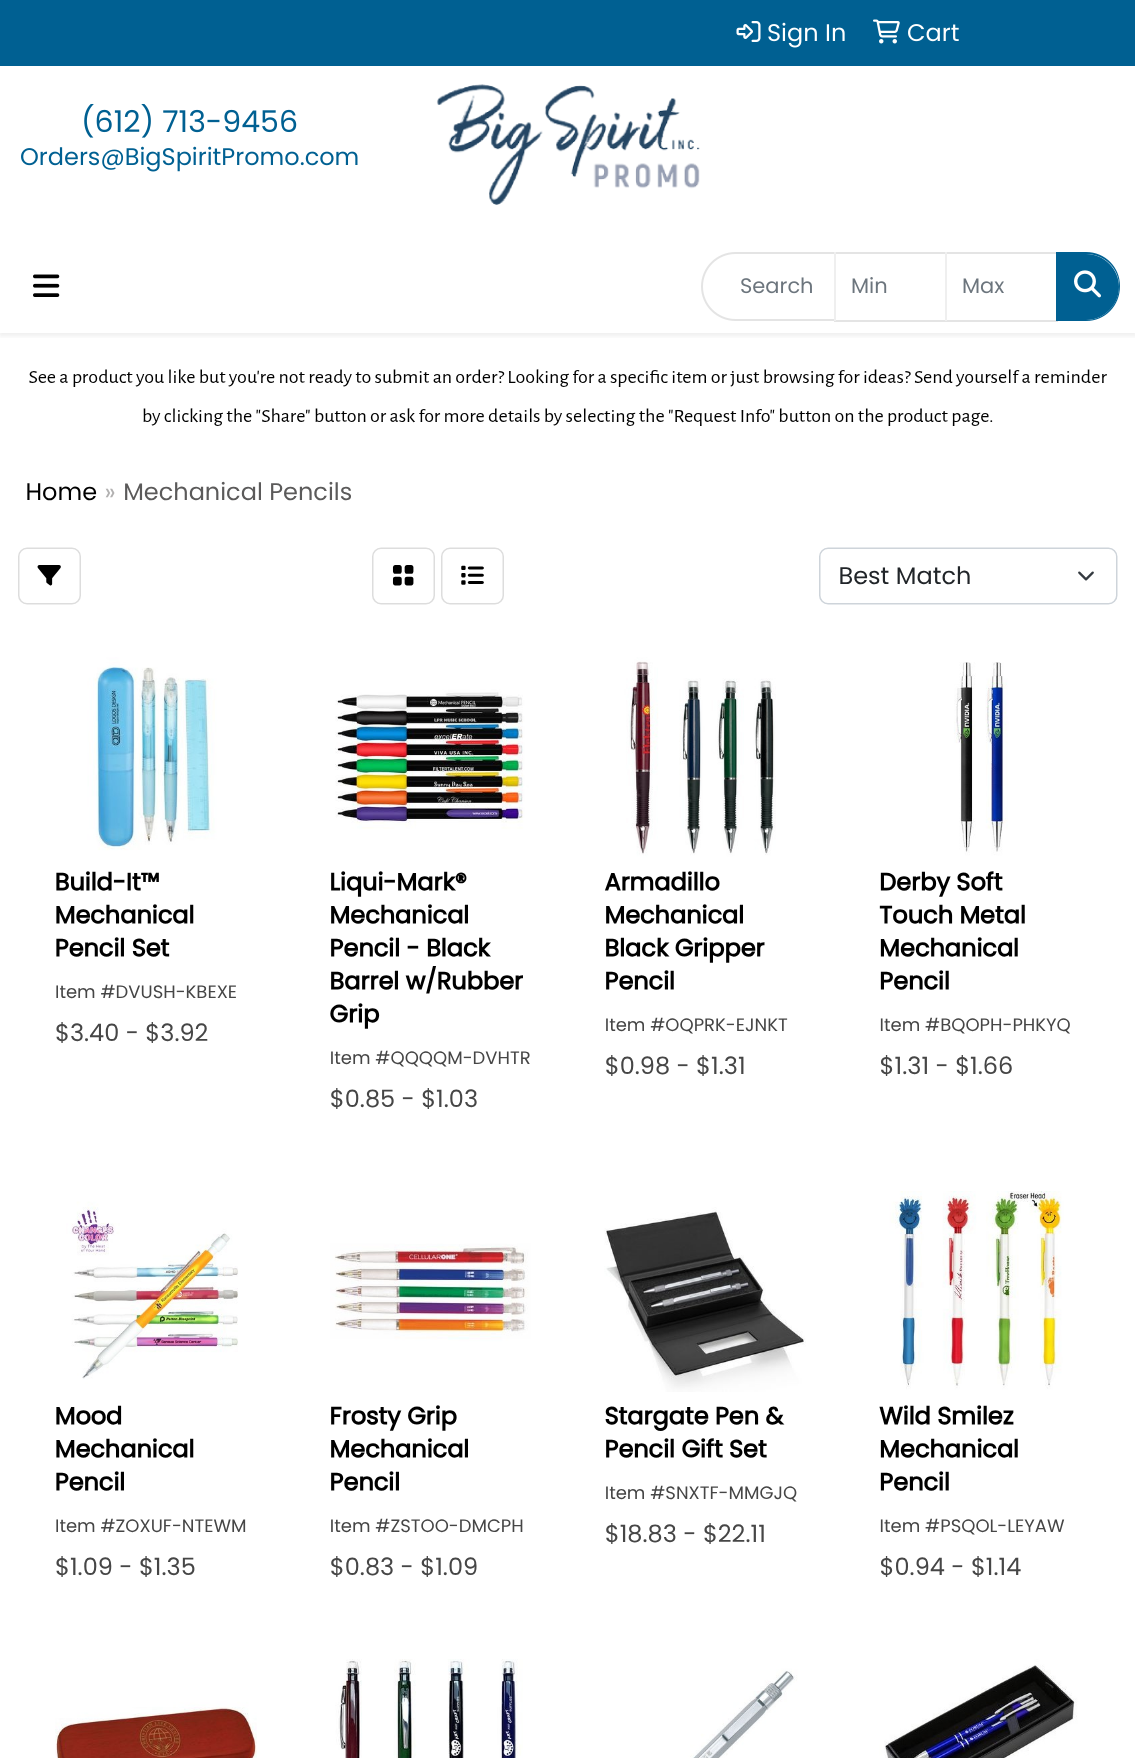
import math
import cairo



def rounded_rect(context, x, y, w, h, r):
    context.new_sub_path()
    for i, (u, v) in enumerate([(x + w - r, y + h - r), (x + r, y + h - r), (x + r, y + r), (x + w - r, y + r)]):
        context.arc(u, v, r, i * math.pi / 2, (i + 1) * math.pi / 2)
    context.close_path()


def draw_shadow(context, x, y, w, h, r, blur, alpha):
    context.push_group_with_content(cairo.Content.ALPHA)
    context.set_operator(cairo.Operator.SOURCE)
    for i in range(15, -16, -2):
        e = blur * i / 6
        if min(w, h) + 2 * e > 0:
            context.set_source_rgba(0, 0, 0, alpha * math.erfc((i - 1) / 8.5) / 2)
            rounded_rect(context, x - e, y - e, w + 2 * e, h + 2 * e, max(0, min(r + e + blur * .6, min(w, h) / 2 + e)))
            context.fill()
    context.mask(context.pop_group())


def draw_image(context, path, x, y, w, h):
    context.save()
    context.set_source_surface(cairo.ImageSurface.create_from_png(path), x, y)
    context.rectangle(x, y, w, h)
    context.fill()
    context.restore()


def draw(context):
    context.set_source_rgb(1, 1, 1)
    context.paint()
    context.set_source_rgb(0, 96 / 255, 146 / 255)
    context.rectangle(0, 0, 1135, 66)
    context.fill()
    draw_image(context, "images/1.png", 736, 21, 25, 21)
    draw_image(context, "images/2.png", 873, 19, 27, 25)
    draw_image(context, "images/3.png", 436, 84, 264, 121)
    context.save()
    context.rectangle(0, 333, 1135, 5)
    context.clip()
    context.set_source_rgb(0, 0, 0)
    draw_shadow(context, 0, 243, 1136, 93, 0, 3, 0.07)
    context.restore()
    draw_image(context, "images/4.png", 33, 274, 27, 23)
    context.new_path()
    context.move_to(735.5, 253)
    context.line_to(835, 253)
    context.line_to(835, 320)
    context.line_to(735.5, 320)
    context.curve_to(717, 320, 702, 305, 702, 286.5)
    context.curve_to(702, 268, 717, 253, 735.5, 253)
    context.close_path()
    context.set_source_rgb(228 / 255, 228 / 255, 228 / 255)
    context.stroke()
    context.rectangle(834, 252, 224, 2)
    context.fill()
    context.rectangle(834, 320, 224, 2)
    context.fill()
    context.set_source_rgb(239 / 255, 239 / 255, 239 / 255)
    context.rectangle(834, 252, 2, 69)
    context.fill()
    context.rectangle(945, 252, 2, 69)
    context.fill()
    context.set_source_rgb(0, 96 / 255, 146 / 255)
    context.new_path()
    context.move_to(1056, 254)
    context.line_to(1086, 254)
    context.curve_to(1104, 254, 1119, 269, 1119, 287)
    context.curve_to(1119, 305, 1104, 320, 1086, 320)
    context.line_to(1056, 320)
    context.close_path()
    context.fill()
    context.set_fill_rule(cairo.FillRule.EVEN_ODD)
    context.new_path()
    context.move_to(1056, 252)
    context.line_to(1086, 252)
    context.curve_to(1105, 252, 1120, 267, 1120, 286)
    context.curve_to(1120, 306, 1105, 321, 1086, 321)
    context.line_to(1056, 321)
    context.close_path()
    context.move_to(1056, 254)
    context.line_to(1086, 254)
    context.curve_to(1104, 254, 1119, 268, 1119, 286)
    context.curve_to(1119, 305, 1104, 320, 1086, 320)
    context.line_to(1056, 320)
    context.close_path()
    context.fill()
    draw_image(context, "images/5.png", 1074, 270, 27, 28)
    draw_image(context, "images/6.png", 18, 369, 1100, 1389)
    context.select_font_face("Poppins")
    context.set_font_size(24)
    context.set_source_rgb(1, 1, 1)
    context.move_to(767, 41)
    context.show_text("Sign In")
    context.move_to(907, 41)
    context.show_text("Cart")
    context.set_font_size(30)
    context.set_source_rgb(0, 96 / 255, 146 / 255)
    context.move_to(81, 132)
    context.show_text("(612) 713-9456")
    context.set_font_size(24)
    context.move_to(20, 165)
    context.show_text("Orders@BigSpiritPromo.com")
    context.set_font_size(21)
    context.set_source_rgb(108 / 255, 117 / 255, 125 / 255)
    context.move_to(740, 293)
    context.show_text("Search")
    context.move_to(851, 293)
    context.show_text("Min")
    context.move_to(962, 293)
    context.show_text("Max")


surface = cairo.ImageSurface(cairo.Format.RGB24, 1135, 1758)
context = cairo.Context(surface)
options = cairo.FontOptions()
options.set_hint_metrics(cairo.HintMetrics.OFF)
options.set_hint_style(cairo.HintStyle.NONE)
context.set_font_options(options)
context.set_miter_limit(4)
draw(context)
surface.write_to_png("out.png")
